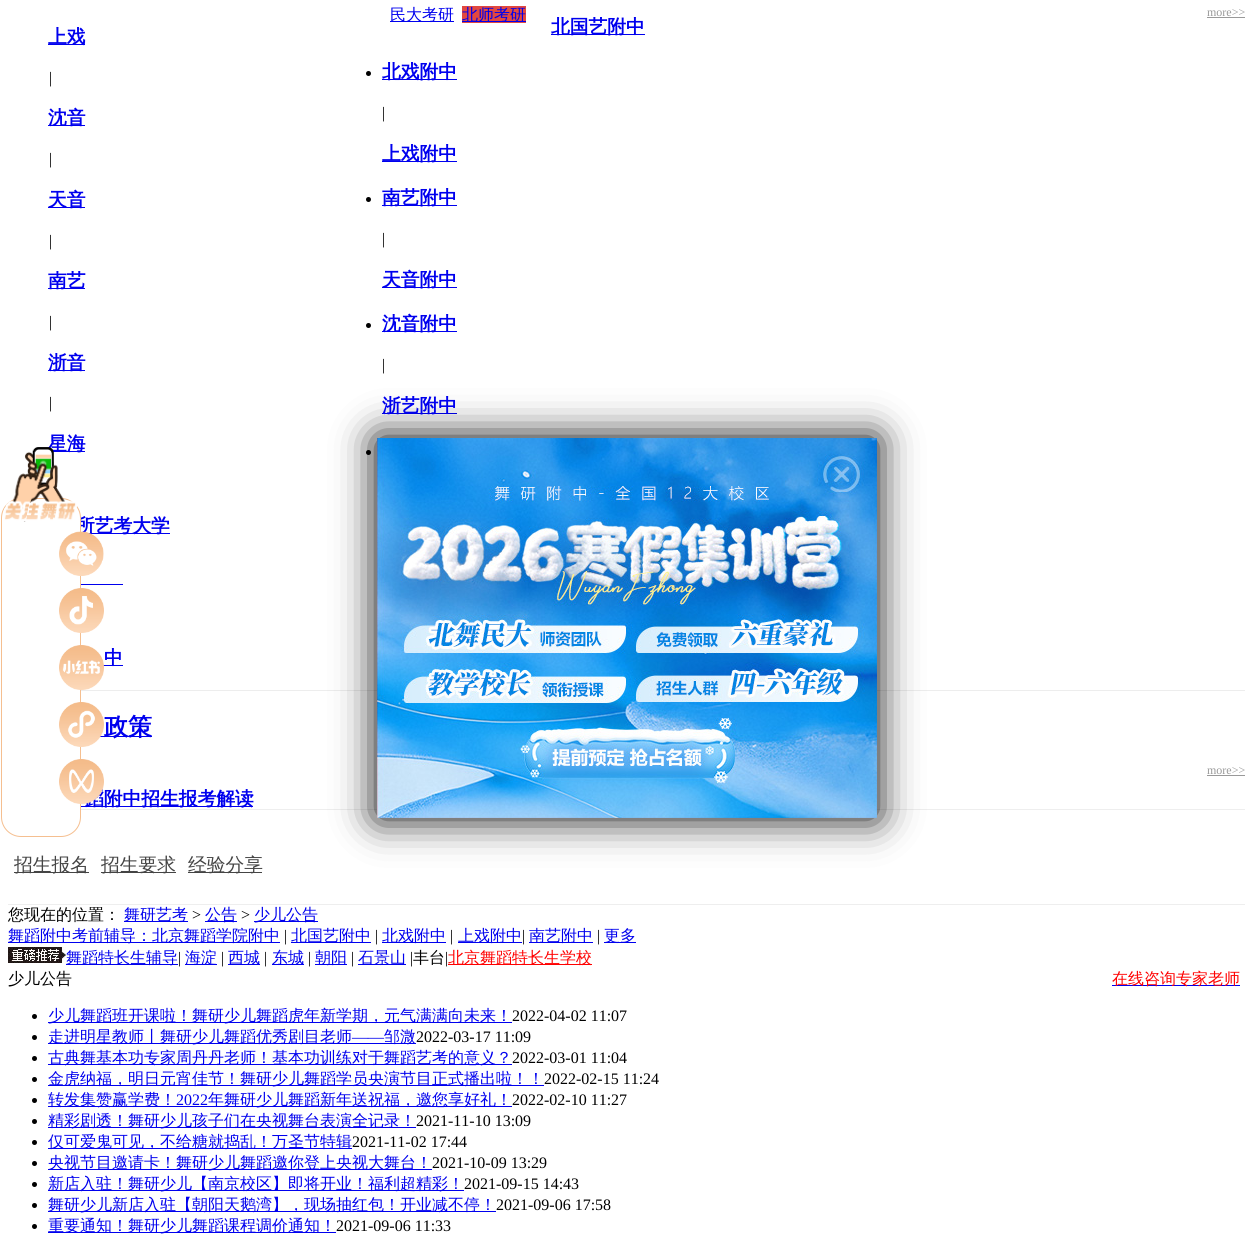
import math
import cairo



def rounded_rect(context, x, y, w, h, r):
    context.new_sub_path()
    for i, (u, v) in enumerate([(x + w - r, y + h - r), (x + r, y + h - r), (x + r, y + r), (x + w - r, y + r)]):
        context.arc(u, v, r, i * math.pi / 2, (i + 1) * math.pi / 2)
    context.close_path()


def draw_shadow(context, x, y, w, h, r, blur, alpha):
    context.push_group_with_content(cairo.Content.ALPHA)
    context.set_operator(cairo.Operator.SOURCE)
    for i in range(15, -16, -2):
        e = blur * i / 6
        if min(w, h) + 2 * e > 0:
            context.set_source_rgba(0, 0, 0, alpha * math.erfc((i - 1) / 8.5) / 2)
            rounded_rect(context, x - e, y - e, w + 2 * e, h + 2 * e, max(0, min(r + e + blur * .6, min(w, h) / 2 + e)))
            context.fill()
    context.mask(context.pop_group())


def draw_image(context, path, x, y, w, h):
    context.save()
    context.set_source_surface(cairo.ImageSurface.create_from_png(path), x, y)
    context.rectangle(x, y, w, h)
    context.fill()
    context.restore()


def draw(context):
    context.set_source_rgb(1, 1, 1)
    context.paint()
    context.set_source_rgb(0, 0, 238 / 255)
    context.rectangle(390, 21, 64, 1)
    context.fill()
    context.set_source_rgb(225 / 255, 72 / 255, 64 / 255)
    context.rectangle(462, 6, 64, 17)
    context.fill()
    context.set_source_rgb(0, 0, 238 / 255)
    context.rectangle(462, 21, 64, 1)
    context.fill()
    context.rectangle(48, 44, 37, 1)
    context.fill()
    context.rectangle(48, 125, 37, 1)
    context.fill()
    context.rectangle(48, 207, 37, 1)
    context.fill()
    context.rectangle(48, 288, 37, 1)
    context.fill()
    context.rectangle(48, 370, 37, 1)
    context.fill()
    context.rectangle(48, 451, 37, 1)
    context.fill()
    context.rectangle(88, 533, 82, 1)
    context.fill()
    context.set_source_rgb(153 / 255, 153 / 255, 153 / 255)
    context.rectangle(1207, 17, 38, 1)
    context.fill()
    context.set_source_rgb(237 / 255, 237 / 255, 237 / 255)
    context.rectangle(81, 690, 1164, 1)
    context.fill()
    context.set_source_rgb(0, 0, 238 / 255)
    context.rectangle(551, 34, 94, 1)
    context.fill()
    context.set_source_rgb(0, 0, 0)
    context.arc(368.5, 73.5, 2.5, 0, 2 * math.pi)
    context.fill()
    context.set_source_rgb(0, 0, 238 / 255)
    context.rectangle(382, 79, 75, 1)
    context.fill()
    context.rectangle(382, 161, 75, 1)
    context.fill()
    context.set_source_rgb(0, 0, 0)
    context.arc(368.5, 199.5, 2.5, 0, 2 * math.pi)
    context.fill()
    context.set_source_rgb(0, 0, 238 / 255)
    context.rectangle(382, 205, 75, 1)
    context.fill()
    context.rectangle(382, 287, 75, 1)
    context.fill()
    context.set_source_rgb(0, 0, 0)
    context.arc(368.5, 325.5, 2.5, 0, 2 * math.pi)
    context.fill()
    context.set_source_rgb(0, 0, 238 / 255)
    context.rectangle(382, 331, 75, 1)
    context.fill()
    context.rectangle(382, 413, 75, 1)
    context.fill()
    context.set_source_rgb(0, 0, 0)
    context.arc(368.5, 452.5, 2.5, 0, 2 * math.pi)
    context.fill()
    context.set_source_rgb(0, 0, 238 / 255)
    context.rectangle(81, 584, 42, 1)
    context.fill()
    context.rectangle(103, 665, 20, 1)
    context.fill()
    context.rectangle(99, 736, 53, 1)
    context.fill()
    context.set_source_rgb(153 / 255, 153 / 255, 153 / 255)
    context.rectangle(1207, 775, 38, 1)
    context.fill()
    context.set_source_rgb(238 / 255, 238 / 255, 238 / 255)
    context.rectangle(81, 809, 1164, 1)
    context.fill()
    context.set_source_rgb(0, 0, 238 / 255)
    context.rectangle(81, 806, 172, 1)
    context.fill()
    context.set_source_rgb(238 / 255, 238 / 255, 238 / 255)
    context.rectangle(8, 904, 1237, 1)
    context.fill()
    context.set_source_rgb(68 / 255, 68 / 255, 68 / 255)
    context.rectangle(14, 872, 75, 1)
    context.fill()
    context.rectangle(101, 872, 75, 1)
    context.fill()
    context.rectangle(188, 872, 74, 1)
    context.fill()
    context.set_source_rgb(0, 0, 238 / 255)
    context.rectangle(124, 921, 64, 1)
    context.fill()
    context.rectangle(205, 921, 32, 1)
    context.fill()
    context.rectangle(254, 921, 64, 1)
    context.fill()
    context.rectangle(8, 942, 272, 1)
    context.fill()
    context.rectangle(291, 942, 80, 1)
    context.fill()
    context.rectangle(382, 942, 64, 1)
    context.fill()
    context.rectangle(458, 942, 64, 1)
    context.fill()
    context.rectangle(529, 942, 64, 1)
    context.fill()
    context.rectangle(604, 942, 32, 1)
    context.fill()
    draw_image(context, "images/1.png", 8, 947, 58, 16)
    context.rectangle(66, 964, 112, 1)
    context.fill()
    context.rectangle(185, 964, 32, 1)
    context.fill()
    context.rectangle(228, 964, 32, 1)
    context.fill()
    context.rectangle(272, 964, 32, 1)
    context.fill()
    context.rectangle(315, 964, 32, 1)
    context.fill()
    context.rectangle(358, 964, 48, 1)
    context.fill()
    context.set_source_rgb(1, 0, 0)
    context.rectangle(448, 964, 144, 1)
    context.fill()
    context.set_source_rgb(0, 0, 238 / 255)
    context.rectangle(1112, 985, 128, 1)
    context.fill()
    context.set_source_rgb(0, 0, 0)
    context.arc(34.5, 1016.5, 2.5, 0, 2 * math.pi)
    context.fill()
    context.set_source_rgb(0, 0, 238 / 255)
    context.rectangle(48, 1022, 464, 1)
    context.fill()
    context.set_source_rgb(0, 0, 0)
    context.arc(34.5, 1037.5, 2.5, 0, 2 * math.pi)
    context.fill()
    context.set_source_rgb(0, 0, 238 / 255)
    context.rectangle(48, 1043, 368, 1)
    context.fill()
    context.set_source_rgb(0, 0, 0)
    context.arc(34.5, 1058.5, 2.5, 0, 2 * math.pi)
    context.fill()
    context.set_source_rgb(0, 0, 238 / 255)
    context.rectangle(48, 1064, 464, 1)
    context.fill()
    context.set_source_rgb(0, 0, 0)
    context.arc(34.5, 1079.5, 2.5, 0, 2 * math.pi)
    context.fill()
    context.set_source_rgb(0, 0, 238 / 255)
    context.rectangle(48, 1085, 496, 1)
    context.fill()
    context.set_source_rgb(0, 0, 0)
    context.arc(34.5, 1100.5, 2.5, 0, 2 * math.pi)
    context.fill()
    context.set_source_rgb(0, 0, 238 / 255)
    context.rectangle(48, 1106, 464, 1)
    context.fill()
    context.set_source_rgb(0, 0, 0)
    context.arc(34.5, 1121.5, 2.5, 0, 2 * math.pi)
    context.fill()
    context.set_source_rgb(0, 0, 238 / 255)
    context.rectangle(48, 1127, 368, 1)
    context.fill()
    context.set_source_rgb(0, 0, 0)
    context.arc(34.5, 1142.5, 2.5, 0, 2 * math.pi)
    context.fill()
    context.set_source_rgb(0, 0, 238 / 255)
    context.rectangle(48, 1148, 304, 1)
    context.fill()
    context.set_source_rgb(0, 0, 0)
    context.arc(34.5, 1163.5, 2.5, 0, 2 * math.pi)
    context.fill()
    context.set_source_rgb(0, 0, 238 / 255)
    context.rectangle(48, 1169, 384, 1)
    context.fill()
    context.set_source_rgb(0, 0, 0)
    context.arc(34.5, 1184.5, 2.5, 0, 2 * math.pi)
    context.fill()
    context.set_source_rgb(0, 0, 238 / 255)
    context.rectangle(48, 1190, 416, 1)
    context.fill()
    context.set_source_rgb(0, 0, 0)
    context.arc(34.5, 1205.5, 2.5, 0, 2 * math.pi)
    context.fill()
    context.set_source_rgb(0, 0, 238 / 255)
    context.rectangle(48, 1211, 448, 1)
    context.fill()
    context.set_source_rgb(0, 0, 0)
    context.arc(34.5, 1226.5, 2.5, 0, 2 * math.pi)
    context.fill()
    context.set_source_rgb(0, 0, 238 / 255)
    context.rectangle(48, 1232, 288, 1)
    context.fill()
    context.set_source_rgb(0, 0, 0)
    draw_shadow(context, 377, 438, 500, 380, 0, 20, 1)
    draw_image(context, "images/8.png", 377, 438, 500, 380)
    context.select_font_face("WenQuanYi Zen Hei Medium")
    context.set_font_size(16)
    context.set_source_rgb(0, 0, 238 / 255)
    context.move_to(390, 20)
    context.show_text("民大考研")
    context.move_to(462, 20)
    context.show_text("北师考研")
    context.select_font_face("WenQuanYi Zen Hei", cairo.FontSlant.NORMAL, cairo.FontWeight.BOLD)
    context.set_font_size(18.75)
    context.move_to(48, 43)
    context.show_text("上戏")
    context.select_font_face("Liberation Serif", cairo.FontSlant.ITALIC)
    context.set_font_size(16)
    context.set_source_rgb(0, 0, 0)
    context.move_to(48, 83)
    context.show_text("|")
    context.select_font_face("WenQuanYi Zen Hei", cairo.FontSlant.NORMAL, cairo.FontWeight.BOLD)
    context.set_font_size(18.75)
    context.set_source_rgb(0, 0, 238 / 255)
    context.move_to(48, 124)
    context.show_text("沈音")
    context.select_font_face("Liberation Serif", cairo.FontSlant.ITALIC)
    context.set_font_size(16)
    context.set_source_rgb(0, 0, 0)
    context.move_to(48, 164)
    context.show_text("|")
    context.select_font_face("WenQuanYi Zen Hei", cairo.FontSlant.NORMAL, cairo.FontWeight.BOLD)
    context.set_font_size(18.75)
    context.set_source_rgb(0, 0, 238 / 255)
    context.move_to(48, 206)
    context.show_text("天音")
    context.select_font_face("Liberation Serif", cairo.FontSlant.ITALIC)
    context.set_font_size(16)
    context.set_source_rgb(0, 0, 0)
    context.move_to(48, 246)
    context.show_text("|")
    context.select_font_face("WenQuanYi Zen Hei", cairo.FontSlant.NORMAL, cairo.FontWeight.BOLD)
    context.set_font_size(18.75)
    context.set_source_rgb(0, 0, 238 / 255)
    context.move_to(48, 287)
    context.show_text("南艺")
    context.select_font_face("Liberation Serif", cairo.FontSlant.ITALIC)
    context.set_font_size(16)
    context.set_source_rgb(0, 0, 0)
    context.move_to(48, 327)
    context.show_text("|")
    context.select_font_face("WenQuanYi Zen Hei", cairo.FontSlant.NORMAL, cairo.FontWeight.BOLD)
    context.set_font_size(18.75)
    context.set_source_rgb(0, 0, 238 / 255)
    context.move_to(48, 369)
    context.show_text("浙音")
    context.select_font_face("Liberation Serif", cairo.FontSlant.ITALIC)
    context.set_font_size(16)
    context.set_source_rgb(0, 0, 0)
    context.move_to(48, 408)
    context.show_text("|")
    context.select_font_face("WenQuanYi Zen Hei", cairo.FontSlant.NORMAL, cairo.FontWeight.BOLD)
    context.set_font_size(18.75)
    context.set_source_rgb(0, 0, 238 / 255)
    context.move_to(48, 450)
    context.show_text("星海")
    context.move_to(76, 532)
    context.show_text("所艺考大学")
    context.select_font_face("Liberation Serif")
    context.set_font_size(12)
    context.set_source_rgb(153 / 255, 153 / 255, 153 / 255)
    context.move_to(1207, 16)
    context.show_text("more>>")
    context.select_font_face("WenQuanYi Zen Hei", cairo.FontSlant.NORMAL, cairo.FontWeight.BOLD)
    context.set_font_size(18.75)
    context.set_source_rgb(0, 0, 238 / 255)
    context.move_to(551, 33)
    context.show_text("北国艺附中")
    context.move_to(382, 78)
    context.show_text("北戏附中")
    context.select_font_face("Liberation Serif")
    context.set_font_size(16)
    context.set_source_rgb(0, 0, 0)
    context.move_to(382, 118)
    context.show_text("|")
    context.select_font_face("WenQuanYi Zen Hei", cairo.FontSlant.NORMAL, cairo.FontWeight.BOLD)
    context.set_font_size(18.75)
    context.set_source_rgb(0, 0, 238 / 255)
    context.move_to(382, 160)
    context.show_text("上戏附中")
    context.move_to(382, 204)
    context.show_text("南艺附中")
    context.select_font_face("Liberation Serif")
    context.set_font_size(16)
    context.set_source_rgb(0, 0, 0)
    context.move_to(382, 244)
    context.show_text("|")
    context.select_font_face("WenQuanYi Zen Hei", cairo.FontSlant.NORMAL, cairo.FontWeight.BOLD)
    context.set_font_size(18.75)
    context.set_source_rgb(0, 0, 238 / 255)
    context.move_to(382, 286)
    context.show_text("天音附中")
    context.move_to(382, 330)
    context.show_text("沈音附中")
    context.select_font_face("Liberation Serif")
    context.set_font_size(16)
    context.set_source_rgb(0, 0, 0)
    context.move_to(382, 370)
    context.show_text("|")
    context.select_font_face("WenQuanYi Zen Hei", cairo.FontSlant.NORMAL, cairo.FontWeight.BOLD)
    context.set_font_size(18.75)
    context.set_source_rgb(0, 0, 238 / 255)
    context.move_to(382, 412)
    context.show_text("浙艺附中")
    context.move_to(104, 664)
    context.show_text("中")
    context.set_font_size(24)
    context.move_to(104, 735)
    context.show_text("政策")
    context.select_font_face("Liberation Serif")
    context.set_font_size(12)
    context.set_source_rgb(153 / 255, 153 / 255, 153 / 255)
    context.move_to(1207, 774)
    context.show_text("more>>")
    context.select_font_face("WenQuanYi Zen Hei", cairo.FontSlant.NORMAL, cairo.FontWeight.BOLD)
    context.set_font_size(18.75)
    context.set_source_rgb(0, 0, 238 / 255)
    context.move_to(85, 805)
    context.show_text("蹈附中招生报考解读")
    context.select_font_face("WenQuanYi Zen Hei Medium")
    context.set_source_rgb(68 / 255, 68 / 255, 68 / 255)
    context.move_to(14, 871)
    context.show_text("招生报名")
    context.move_to(101, 871)
    context.show_text("招生要求")
    context.move_to(188, 871)
    context.show_text("经验分享")
    context.set_font_size(16)
    context.set_source_rgb(0, 0, 0)
    context.move_to(8, 920)
    context.show_text("您现在的位置：")
    context.set_source_rgb(0, 0, 238 / 255)
    context.move_to(124, 920)
    context.show_text("舞研艺考")
    context.select_font_face("Liberation Serif")
    context.set_source_rgb(0, 0, 0)
    context.move_to(192, 920)
    context.show_text(">")
    context.select_font_face("WenQuanYi Zen Hei Medium")
    context.set_source_rgb(0, 0, 238 / 255)
    context.move_to(205, 920)
    context.show_text("公告")
    context.select_font_face("Liberation Serif")
    context.set_source_rgb(0, 0, 0)
    context.move_to(241, 920)
    context.show_text(">")
    context.select_font_face("WenQuanYi Zen Hei Medium")
    context.set_source_rgb(0, 0, 238 / 255)
    context.move_to(254, 920)
    context.show_text("少儿公告")
    context.move_to(8, 941)
    context.show_text("舞蹈附中考前辅导：北京舞蹈学院附中")
    context.select_font_face("Liberation Serif")
    context.set_source_rgb(0, 0, 0)
    context.move_to(284, 941)
    context.show_text("|")
    context.select_font_face("WenQuanYi Zen Hei Medium")
    context.set_source_rgb(0, 0, 238 / 255)
    context.move_to(291, 941)
    context.show_text("北国艺附中")
    context.select_font_face("Liberation Serif")
    context.set_source_rgb(0, 0, 0)
    context.move_to(375, 941)
    context.show_text("|")
    context.select_font_face("WenQuanYi Zen Hei Medium")
    context.set_source_rgb(0, 0, 238 / 255)
    context.move_to(382, 941)
    context.show_text("北戏附中")
    context.select_font_face("Liberation Serif")
    context.set_source_rgb(0, 0, 0)
    context.move_to(450, 941)
    context.show_text("|")
    context.select_font_face("WenQuanYi Zen Hei Medium")
    context.set_source_rgb(0, 0, 238 / 255)
    context.move_to(458, 941)
    context.show_text("上戏附中")
    context.select_font_face("Liberation Serif")
    context.set_source_rgb(0, 0, 0)
    context.move_to(522, 941)
    context.show_text("|")
    context.select_font_face("WenQuanYi Zen Hei Medium")
    context.set_source_rgb(0, 0, 238 / 255)
    context.move_to(529, 941)
    context.show_text("南艺附中")
    context.select_font_face("Liberation Serif")
    context.set_source_rgb(0, 0, 0)
    context.move_to(597, 941)
    context.show_text("|")
    context.select_font_face("WenQuanYi Zen Hei Medium")
    context.set_source_rgb(0, 0, 238 / 255)
    context.move_to(604, 941)
    context.show_text("更多")
    context.move_to(66, 963)
    context.show_text("舞蹈特长生辅导")
    context.select_font_face("Liberation Serif")
    context.set_source_rgb(0, 0, 0)
    context.move_to(178, 963)
    context.show_text("|")
    context.select_font_face("WenQuanYi Zen Hei Medium")
    context.set_source_rgb(0, 0, 238 / 255)
    context.move_to(185, 963)
    context.show_text("海淀")
    context.select_font_face("Liberation Serif")
    context.set_source_rgb(0, 0, 0)
    context.move_to(221, 963)
    context.show_text("|")
    context.select_font_face("WenQuanYi Zen Hei Medium")
    context.set_source_rgb(0, 0, 238 / 255)
    context.move_to(228, 963)
    context.show_text("西城")
    context.select_font_face("Liberation Serif")
    context.set_source_rgb(0, 0, 0)
    context.move_to(264, 963)
    context.show_text("|")
    context.select_font_face("WenQuanYi Zen Hei Medium")
    context.set_source_rgb(0, 0, 238 / 255)
    context.move_to(272, 963)
    context.show_text("东城")
    context.select_font_face("Liberation Serif")
    context.set_source_rgb(0, 0, 0)
    context.move_to(308, 963)
    context.show_text("|")
    context.select_font_face("WenQuanYi Zen Hei Medium")
    context.set_source_rgb(0, 0, 238 / 255)
    context.move_to(315, 963)
    context.show_text("朝阳")
    context.select_font_face("Liberation Serif")
    context.set_source_rgb(0, 0, 0)
    context.move_to(351, 963)
    context.show_text("|")
    context.select_font_face("WenQuanYi Zen Hei Medium")
    context.set_source_rgb(0, 0, 238 / 255)
    context.move_to(358, 963)
    context.show_text("石景山")
    context.select_font_face("Liberation Serif")
    context.set_source_rgb(0, 0, 0)
    context.move_to(410, 963)
    context.show_text("|")
    context.select_font_face("WenQuanYi Zen Hei Medium")
    context.move_to(413, 963)
    context.show_text("丰台")
    context.select_font_face("Liberation Serif")
    context.move_to(445, 963)
    context.show_text("|")
    context.select_font_face("WenQuanYi Zen Hei Medium")
    context.set_source_rgb(1, 0, 0)
    context.move_to(448, 963)
    context.show_text("北京舞蹈特长生学校")
    context.set_source_rgb(0, 0, 0)
    context.move_to(8, 984)
    context.show_text("少儿公告")
    context.set_source_rgb(1, 0, 0)
    context.move_to(1112, 984)
    context.show_text("在线咨询专家老师")
    context.set_source_rgb(0, 0, 238 / 255)
    context.move_to(48, 1021)
    context.show_text("少儿舞蹈班开课啦！舞研少儿舞蹈虎年新学期，元气满满向未来！")
    context.select_font_face("Liberation Serif")
    context.set_source_rgb(0, 0, 0)
    context.move_to(512, 1021)
    context.show_text("2022-04-02 11:07")
    context.select_font_face("WenQuanYi Zen Hei Medium")
    context.set_source_rgb(0, 0, 238 / 255)
    context.move_to(48, 1042)
    context.show_text("走进明星教师丨舞研少儿舞蹈优秀剧目老师")
    context.select_font_face("Liberation Serif")
    context.move_to(352, 1042)
    context.show_text("——")
    context.select_font_face("WenQuanYi Zen Hei Medium")
    context.move_to(384, 1042)
    context.show_text("邹溦")
    context.select_font_face("Liberation Serif")
    context.set_source_rgb(0, 0, 0)
    context.move_to(416, 1042)
    context.show_text("2022-03-17 11:09")
    context.select_font_face("WenQuanYi Zen Hei Medium")
    context.set_source_rgb(0, 0, 238 / 255)
    context.move_to(48, 1063)
    context.show_text("古典舞基本功专家周丹丹老师！基本功训练对于舞蹈艺考的意义？")
    context.select_font_face("Liberation Serif")
    context.set_source_rgb(0, 0, 0)
    context.move_to(512, 1063)
    context.show_text("2022-03-01 11:04")
    context.select_font_face("WenQuanYi Zen Hei Medium")
    context.set_source_rgb(0, 0, 238 / 255)
    context.move_to(48, 1084)
    context.show_text("金虎纳福，明日元宵佳节！舞研少儿舞蹈学员央演节目正式播出啦！！")
    context.select_font_face("Liberation Serif")
    context.set_source_rgb(0, 0, 0)
    context.move_to(544, 1084)
    context.show_text("2022-02-15 11:24")
    context.select_font_face("WenQuanYi Zen Hei Medium")
    context.set_source_rgb(0, 0, 238 / 255)
    context.move_to(48, 1105)
    context.show_text("转发集赞赢学费！")
    context.select_font_face("Liberation Serif")
    context.move_to(176, 1105)
    context.show_text("2022")
    context.select_font_face("WenQuanYi Zen Hei Medium")
    context.move_to(208, 1105)
    context.show_text("年舞研少儿舞蹈新年送祝福，邀您享好礼！")
    context.select_font_face("Liberation Serif")
    context.set_source_rgb(0, 0, 0)
    context.move_to(512, 1105)
    context.show_text("2022-02-10 11:27")
    context.select_font_face("WenQuanYi Zen Hei Medium")
    context.set_source_rgb(0, 0, 238 / 255)
    context.move_to(48, 1126)
    context.show_text("精彩剧透！舞研少儿孩子们在央视舞台表演全记录！")
    context.select_font_face("Liberation Serif")
    context.set_source_rgb(0, 0, 0)
    context.move_to(416, 1126)
    context.show_text("2021-11-10 13:09")
    context.select_font_face("WenQuanYi Zen Hei Medium")
    context.set_source_rgb(0, 0, 238 / 255)
    context.move_to(48, 1147)
    context.show_text("仅可爱鬼可见，不给糖就捣乱！万圣节特辑")
    context.select_font_face("Liberation Serif")
    context.set_source_rgb(0, 0, 0)
    context.move_to(352, 1147)
    context.show_text("2021-11-02 17:44")
    context.select_font_face("WenQuanYi Zen Hei Medium")
    context.set_source_rgb(0, 0, 238 / 255)
    context.move_to(48, 1168)
    context.show_text("央视节目邀请卡！舞研少儿舞蹈邀你登上央视大舞台！")
    context.select_font_face("Liberation Serif")
    context.set_source_rgb(0, 0, 0)
    context.move_to(432, 1168)
    context.show_text("2021-10-09 13:29")
    context.select_font_face("WenQuanYi Zen Hei Medium")
    context.set_source_rgb(0, 0, 238 / 255)
    context.move_to(48, 1189)
    context.show_text("新店入驻！舞研少儿【南京校区】即将开业！福利超精彩！")
    context.select_font_face("Liberation Serif")
    context.set_source_rgb(0, 0, 0)
    context.move_to(464, 1189)
    context.show_text("2021-09-15 14:43")
    context.select_font_face("WenQuanYi Zen Hei Medium")
    context.set_source_rgb(0, 0, 238 / 255)
    context.move_to(48, 1210)
    context.show_text("舞研少儿新店入驻【朝阳天鹅湾】，现场抽红包！开业减不停！")
    context.select_font_face("Liberation Serif")
    context.set_source_rgb(0, 0, 0)
    context.move_to(496, 1210)
    context.show_text("2021-09-06 17:58")
    context.select_font_face("WenQuanYi Zen Hei Medium")
    context.set_source_rgb(0, 0, 238 / 255)
    context.move_to(48, 1231)
    context.show_text("重要通知！舞研少儿舞蹈课程调价通知！")
    context.select_font_face("Liberation Serif")
    context.set_source_rgb(0, 0, 0)
    context.move_to(336, 1231)
    context.show_text("2021-09-06 11:33")
    context.set_source_rgb(1, 1, 1)
    rounded_rect(context, 1.5, 498.5, 79, 338, 19.5)
    context.fill_preserve()
    context.set_source_rgb(245 / 255, 191 / 255, 144 / 255)
    context.set_line_width(1)
    context.stroke()
    draw_image(context, "images/2.png", 3, 447, 75, 75)
    draw_image(context, "images/3.png", 59, 531, 45, 45)
    draw_image(context, "images/4.png", 59, 588, 45, 45)
    draw_image(context, "images/5.png", 59, 645, 45, 45)
    draw_image(context, "images/6.png", 59, 702, 45, 45)
    draw_image(context, "images/7.png", 59, 759, 45, 45)


surface = cairo.ImageSurface(cairo.Format.RGB24, 1253, 1235)
context = cairo.Context(surface)
options = cairo.FontOptions()
options.set_hint_metrics(cairo.HintMetrics.OFF)
options.set_hint_style(cairo.HintStyle.NONE)
context.set_font_options(options)
context.set_miter_limit(4)
draw(context)
surface.write_to_png("out.png")
